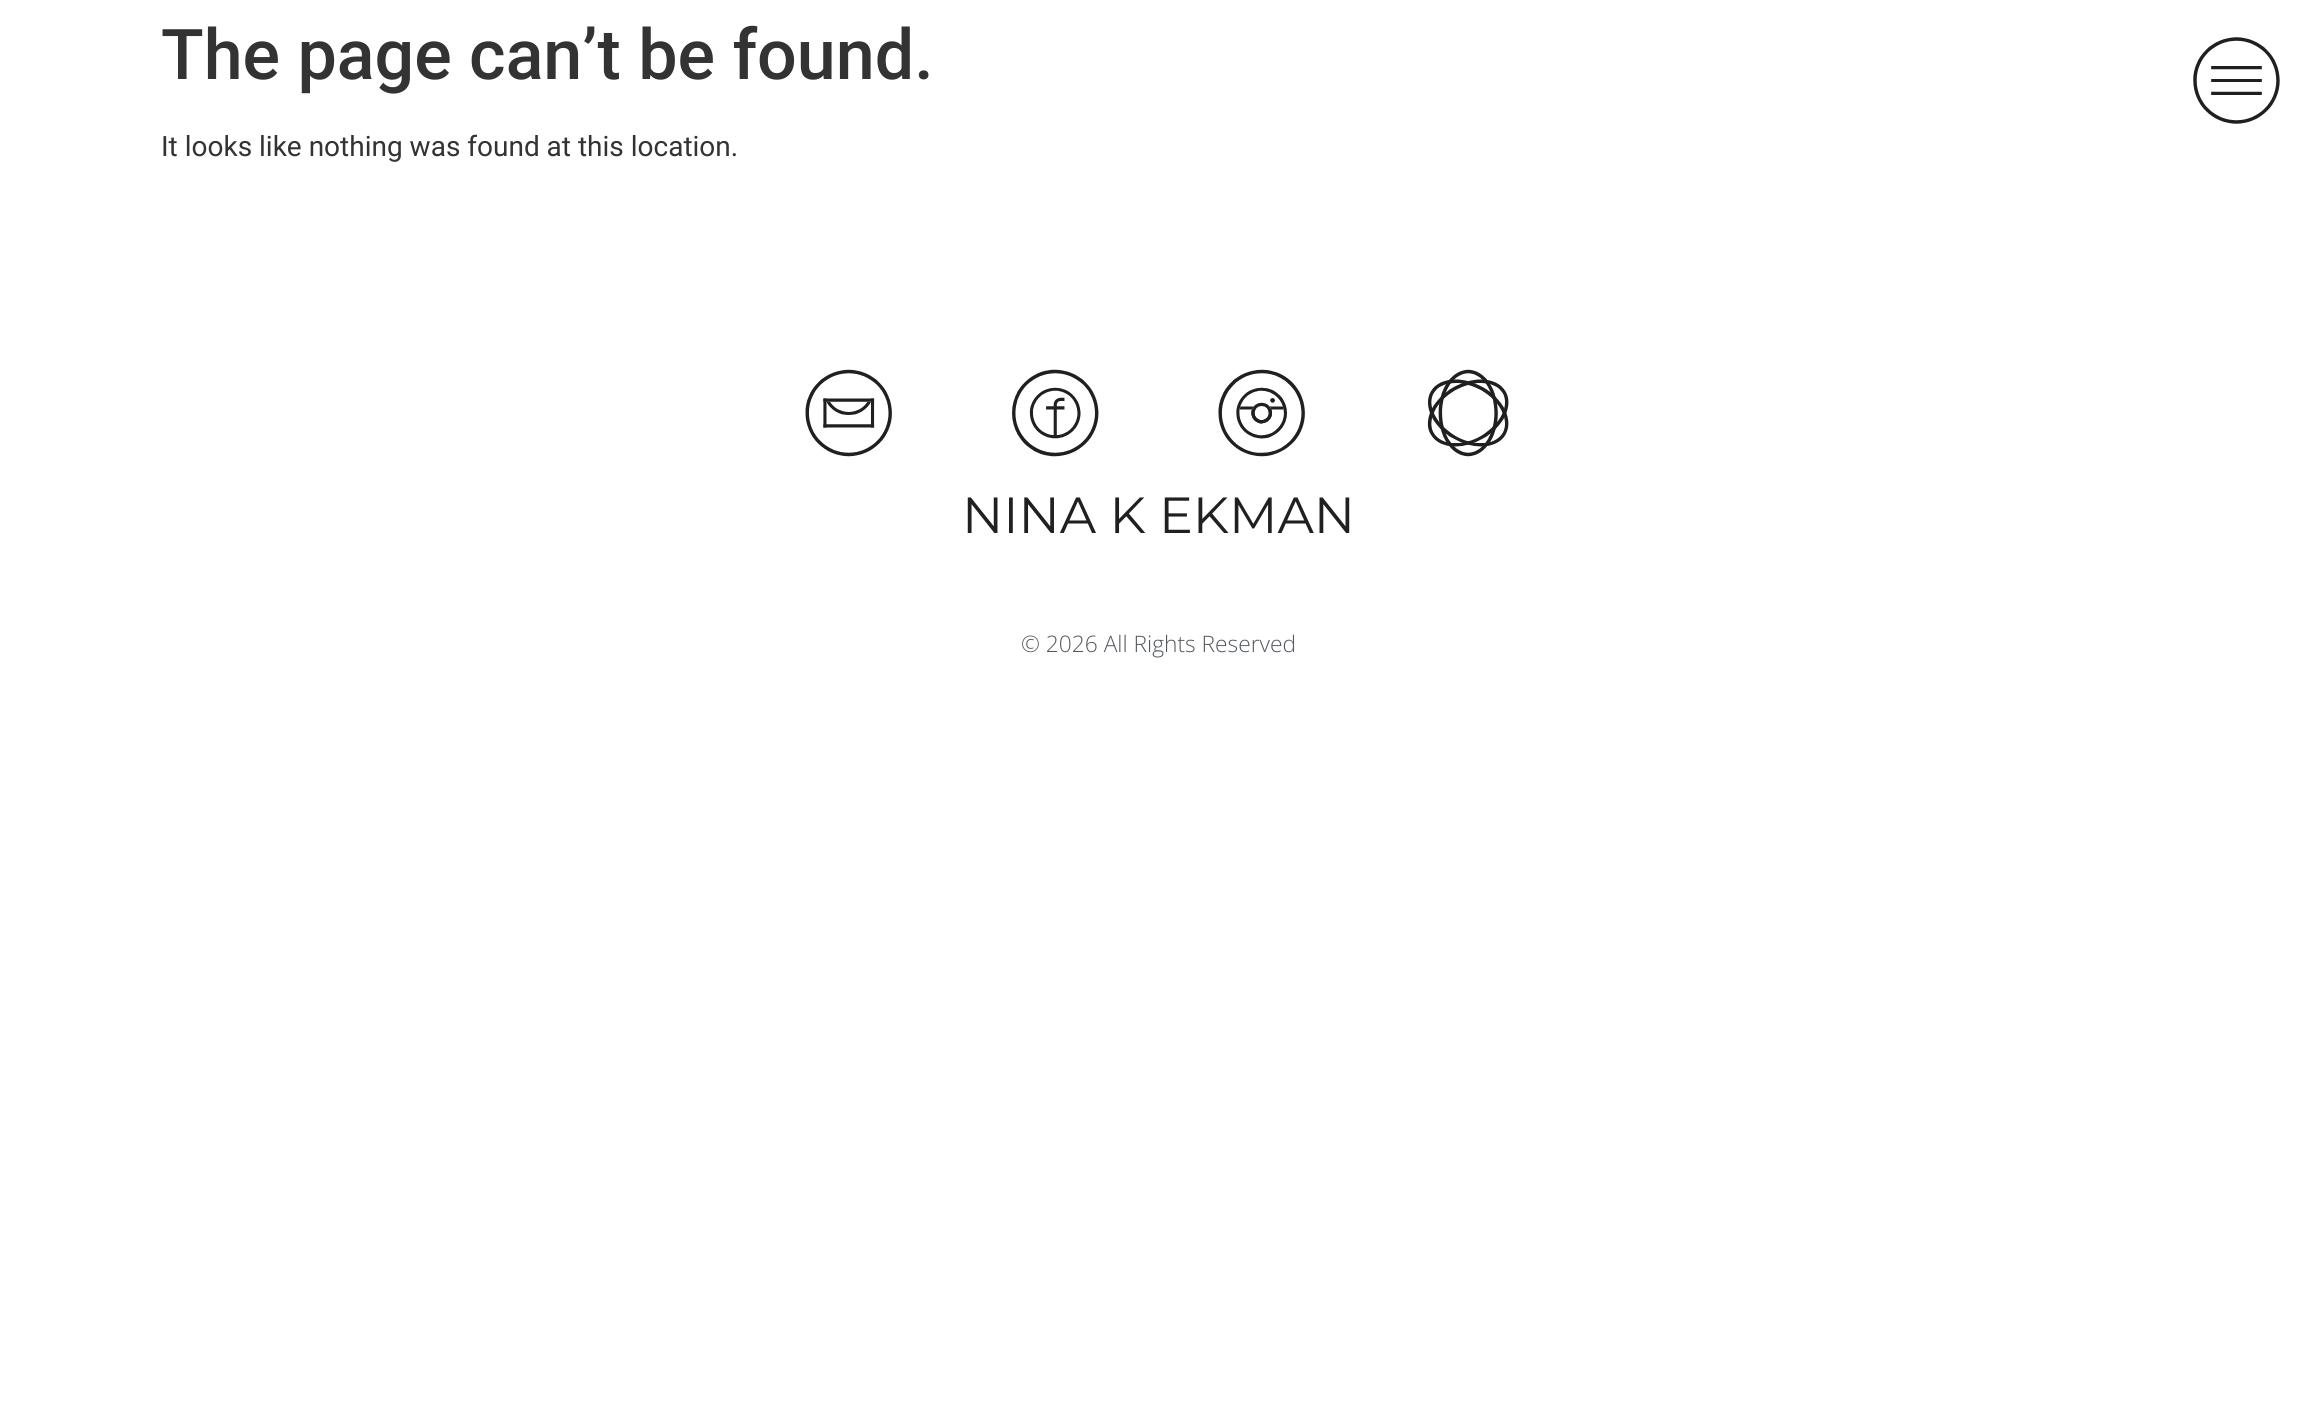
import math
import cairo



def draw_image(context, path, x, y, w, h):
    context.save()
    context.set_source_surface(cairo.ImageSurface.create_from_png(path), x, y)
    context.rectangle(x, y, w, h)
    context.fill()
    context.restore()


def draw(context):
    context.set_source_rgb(1, 1, 1)
    context.paint()
    draw_image(context, "images/1.png", 2193, 37, 87, 87)
    draw_image(context, "images/2.png", 805, 369, 87, 88)
    draw_image(context, "images/3.png", 1012, 369, 87, 88)
    draw_image(context, "images/4.png", 1218, 369, 87, 88)
    draw_image(context, "images/5.png", 1427, 369, 82, 88)
    context.select_font_face("Roboto Medium")
    context.set_font_size(70)
    context.set_source_rgb(51 / 255, 51 / 255, 51 / 255)
    context.move_to(161, 79)
    context.show_text("The page can’t be found.")
    context.select_font_face("Roboto")
    context.set_font_size(28)
    context.move_to(161, 156)
    context.show_text("It looks like nothing was found at this location.")
    context.select_font_face("Montserrat")
    context.set_font_size(50.75)
    context.set_source_rgb(32 / 255, 32 / 255, 32 / 255)
    context.move_to(962, 533)
    context.show_text("NINA K EKMAN")
    context.select_font_face("Open Sans Light")
    context.set_font_size(22.75)
    context.set_source_rgb(84 / 255, 89 / 255, 95 / 255)
    context.move_to(1021, 652)
    context.show_text("© 2026 All Rights Reserved")


surface = cairo.ImageSurface(cairo.Format.RGB24, 2317, 1427)
context = cairo.Context(surface)
options = cairo.FontOptions()
options.set_hint_metrics(cairo.HintMetrics.OFF)
options.set_hint_style(cairo.HintStyle.NONE)
context.set_font_options(options)
context.set_miter_limit(4)
draw(context)
surface.write_to_png("out.png")
